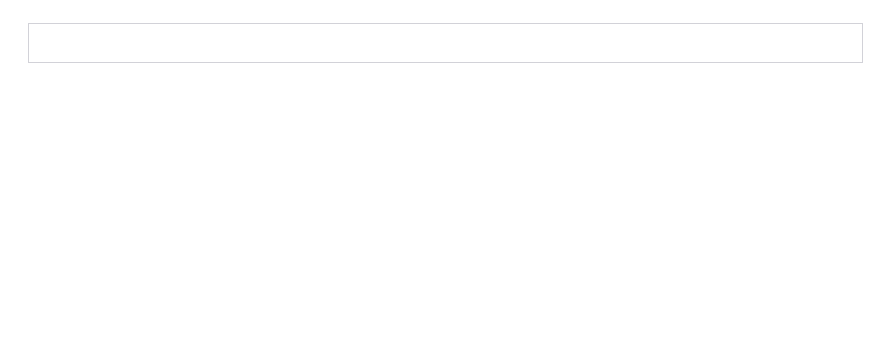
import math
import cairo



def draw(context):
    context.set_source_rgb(1, 1, 1)
    context.paint()
    context.set_source_rgb(210 / 255, 210 / 255, 216 / 255)
    context.rectangle(28, 23, 835, 1)
    context.fill()
    context.rectangle(862, 23, 1, 40)
    context.fill()
    context.rectangle(28, 62, 835, 1)
    context.fill()
    context.rectangle(28, 23, 1, 40)
    context.fill()


surface = cairo.ImageSurface(cairo.Format.RGB24, 890, 362)
context = cairo.Context(surface)
options = cairo.FontOptions()
options.set_hint_metrics(cairo.HintMetrics.OFF)
options.set_hint_style(cairo.HintStyle.NONE)
context.set_font_options(options)
context.set_miter_limit(4)
draw(context)
surface.write_to_png("out.png")
